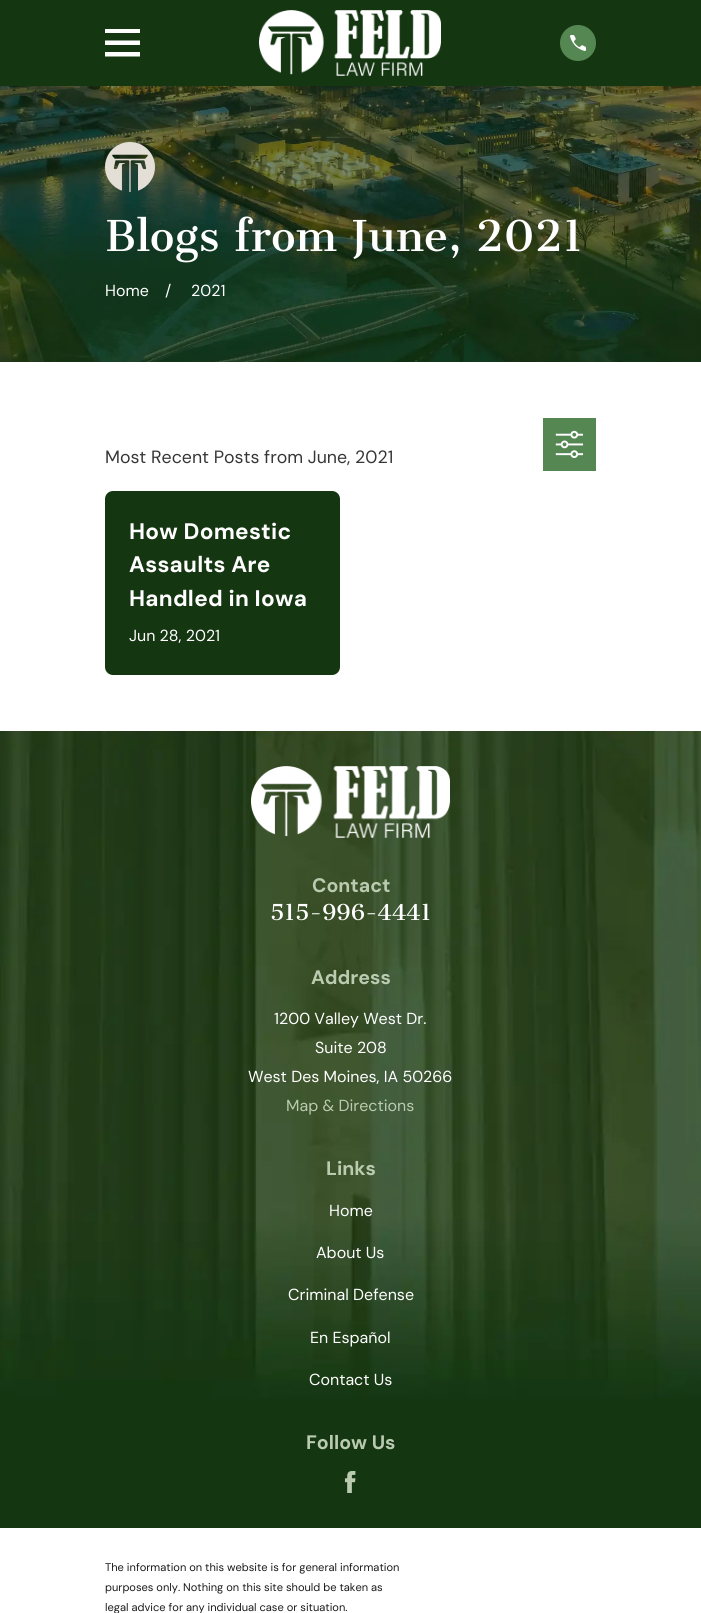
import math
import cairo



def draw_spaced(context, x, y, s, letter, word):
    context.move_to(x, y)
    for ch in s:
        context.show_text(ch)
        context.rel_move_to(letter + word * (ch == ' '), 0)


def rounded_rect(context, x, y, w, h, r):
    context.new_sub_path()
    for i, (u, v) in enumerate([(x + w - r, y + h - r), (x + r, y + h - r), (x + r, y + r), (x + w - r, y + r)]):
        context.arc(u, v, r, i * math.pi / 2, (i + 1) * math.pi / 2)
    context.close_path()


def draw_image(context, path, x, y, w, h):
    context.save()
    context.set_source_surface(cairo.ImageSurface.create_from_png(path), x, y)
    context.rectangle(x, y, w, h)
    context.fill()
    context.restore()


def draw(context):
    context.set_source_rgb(1, 1, 1)
    context.paint()
    context.set_source_rgb(20 / 255, 54 / 255, 17 / 255)
    context.rectangle(0, 0, 701, 86)
    context.fill()
    context.set_source_rgb(1, 1, 1)
    context.new_path()
    context.move_to(105, 29)
    context.line_to(105, 33)
    context.line_to(140, 33)
    context.line_to(140, 29)
    context.close_path()
    context.move_to(105, 40.5)
    context.line_to(105, 45)
    context.line_to(140, 45)
    context.line_to(140, 40.5)
    context.close_path()
    context.move_to(105, 52)
    context.line_to(105, 56.5)
    context.line_to(140, 56.5)
    context.line_to(140, 52)
    context.close_path()
    context.fill()
    draw_image(context, "images/1.png", 259, 10, 182, 66)
    context.set_source_rgb(85 / 255, 135 / 255, 83 / 255)
    context.arc(578, 43, 18, 0, 2 * math.pi)
    context.fill()
    draw_image(context, "images/2.png", 570, 35, 16, 16)
    draw_image(context, "images/3.png", 0, 86, 701, 276)
    draw_image(context, "images/4.png", 105, 142, 50, 50)
    context.rectangle(543, 418, 53, 53)
    context.fill()
    draw_image(context, "images/5.png", 555, 430, 29, 28)
    context.set_source_rgb(20 / 255, 54 / 255, 17 / 255)
    rounded_rect(context, 105, 491, 235, 184, 8)
    context.fill()
    context.rectangle(0, 1398, 701, 130)
    context.fill()
    draw_image(context, "images/6.png", 0, 731, 701, 667)
    draw_image(context, "images/7.png", 251, 766, 199, 72)
    draw_image(context, "images/8.png", 344, 1471, 12, 22)
    context.select_font_face("Cantata One")
    context.set_font_size(41.6)
    context.set_source_rgb(1, 1, 1)
    context.move_to(105, 251)
    context.show_text("Blogs from June, 2021")
    context.select_font_face("DM Sans")
    context.set_font_size(16)
    context.move_to(105, 296)
    context.show_text("Home")
    context.move_to(165, 296)
    context.show_text("/")
    context.move_to(191, 296)
    context.show_text("2021")
    context.set_font_size(17.75)
    context.set_source_rgb(54 / 255, 54 / 255, 54 / 255)
    context.move_to(105, 463)
    context.show_text("Most Recent Posts from June, 2021")
    context.select_font_face("DM Sans", cairo.FontSlant.NORMAL, cairo.FontWeight.BOLD)
    context.set_font_size(22.5)
    context.set_source_rgb(1, 1, 1)
    draw_spaced(context, 129, 539, "How Domestic", 0.25, 0)
    draw_spaced(context, 129, 572, "Assaults Are", 0.25, 0)
    draw_spaced(context, 129, 606, "Handled in Iowa", 0.25, 0)
    context.select_font_face("DM Sans")
    context.set_font_size(16)
    context.move_to(129, 641)
    context.show_text("Jun 28, 2021")
    context.select_font_face("DM Sans", cairo.FontSlant.NORMAL, cairo.FontWeight.BOLD)
    context.set_font_size(19.5)
    context.set_source_rgb(186 / 255, 203 / 255, 176 / 255)
    context.move_to(312, 892)
    context.show_text("Contact")
    context.select_font_face("Cantata One")
    context.set_font_size(21.5)
    context.set_source_rgb(1, 1, 1)
    context.move_to(270, 920)
    context.show_text("515-996-4441")
    context.select_font_face("DM Sans", cairo.FontSlant.NORMAL, cairo.FontWeight.BOLD)
    context.set_font_size(19.5)
    context.set_source_rgb(186 / 255, 203 / 255, 176 / 255)
    context.move_to(311, 984)
    context.show_text("Address")
    context.select_font_face("DM Sans")
    context.set_font_size(16)
    context.set_source_rgb(1, 1, 1)
    context.move_to(274, 1024)
    context.show_text("1200 Valley West Dr.")
    context.move_to(315, 1053)
    context.show_text("Suite 208")
    context.move_to(248, 1082)
    context.show_text("West Des Moines, IA 50266")
    context.set_source_rgb(186 / 255, 203 / 255, 176 / 255)
    context.move_to(286, 1111)
    context.show_text("Map & Directions")
    context.select_font_face("DM Sans", cairo.FontSlant.NORMAL, cairo.FontWeight.BOLD)
    context.set_font_size(19.5)
    context.move_to(326, 1175)
    context.show_text("Links")
    context.select_font_face("DM Sans")
    context.set_font_size(16)
    context.set_source_rgb(1, 1, 1)
    context.move_to(329, 1216)
    context.show_text("Home")
    context.move_to(316, 1258)
    context.show_text("About Us")
    context.move_to(288, 1300)
    context.show_text("Criminal Defense")
    context.move_to(310, 1343)
    context.show_text("En Español")
    context.move_to(309, 1385)
    context.show_text("Contact Us")
    context.select_font_face("DM Sans", cairo.FontSlant.NORMAL, cairo.FontWeight.BOLD)
    context.set_font_size(19.5)
    context.set_source_rgb(186 / 255, 203 / 255, 176 / 255)
    context.move_to(306, 1449)
    context.show_text("Follow Us")
    context.select_font_face("DM Sans")
    context.set_font_size(11.1)
    context.set_source_rgb(25 / 255, 25 / 255, 25 / 255)
    context.move_to(105, 1571)
    context.show_text("The information on this website is for general information")
    context.move_to(105, 1591)
    context.show_text("purposes only. Nothing on this site should be taken as")
    context.move_to(105, 1611)
    context.show_text("legal advice for any individual case or situation.")


surface = cairo.ImageSurface(cairo.Format.RGB24, 701, 1613)
context = cairo.Context(surface)
options = cairo.FontOptions()
options.set_hint_metrics(cairo.HintMetrics.OFF)
options.set_hint_style(cairo.HintStyle.NONE)
context.set_font_options(options)
context.set_miter_limit(4)
draw(context)
surface.write_to_png("out.png")
